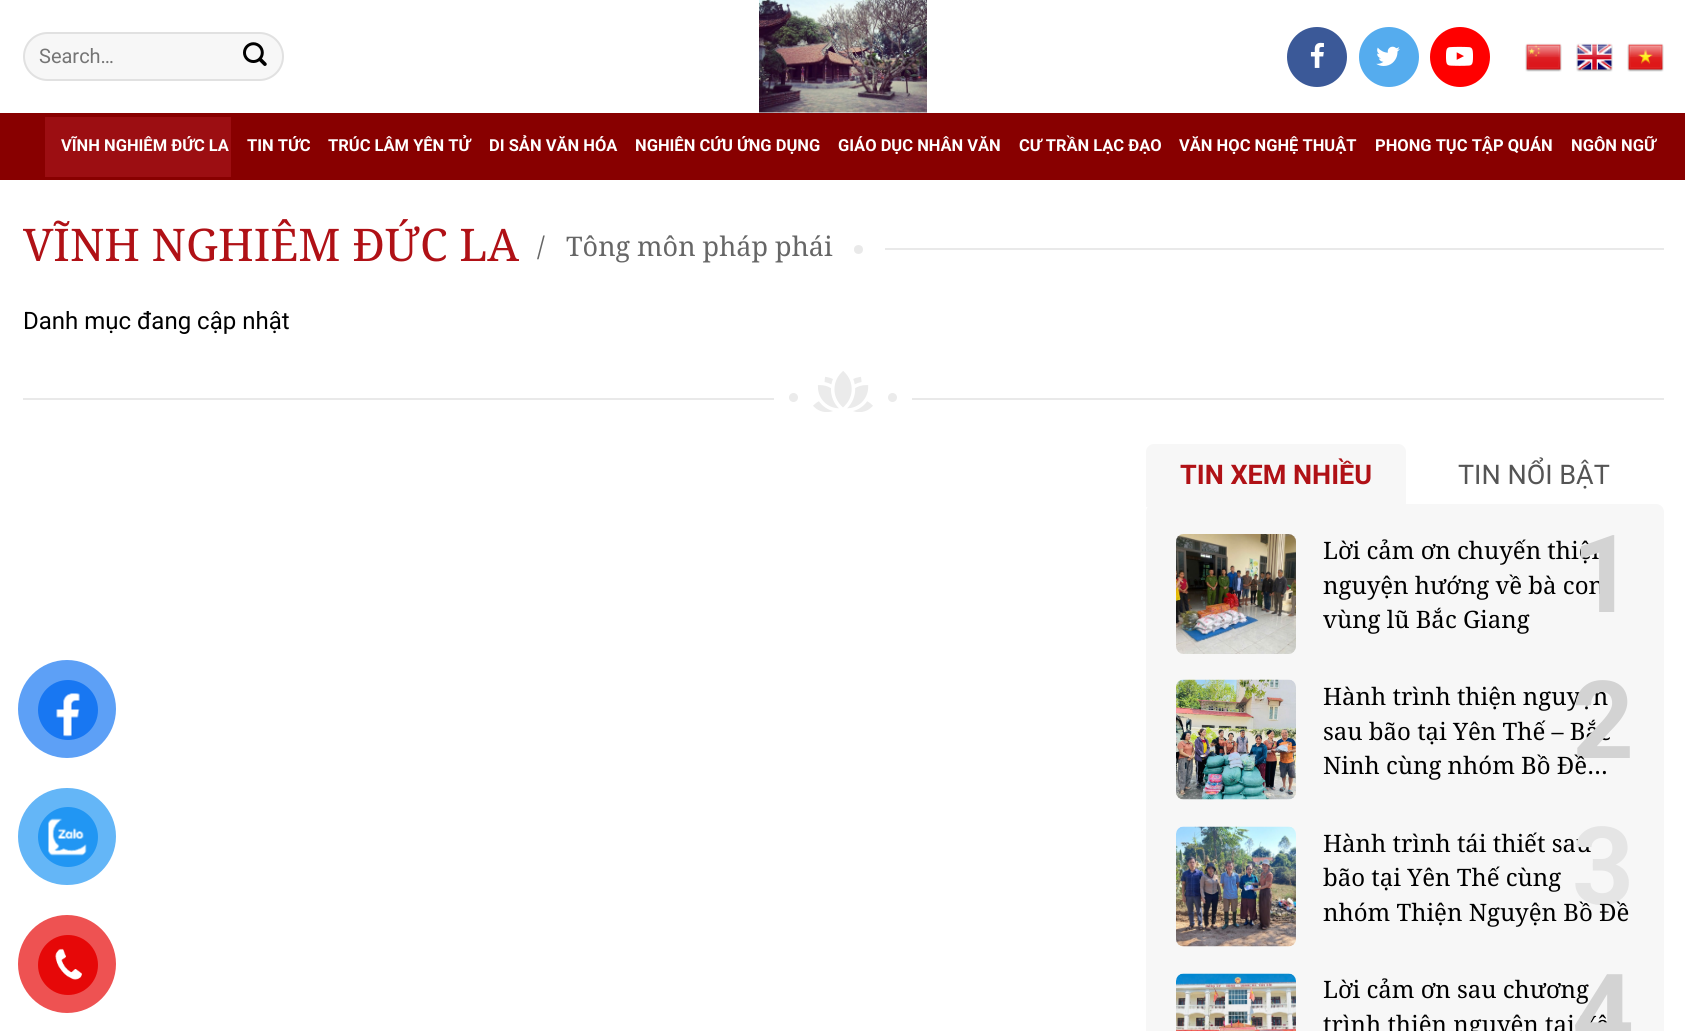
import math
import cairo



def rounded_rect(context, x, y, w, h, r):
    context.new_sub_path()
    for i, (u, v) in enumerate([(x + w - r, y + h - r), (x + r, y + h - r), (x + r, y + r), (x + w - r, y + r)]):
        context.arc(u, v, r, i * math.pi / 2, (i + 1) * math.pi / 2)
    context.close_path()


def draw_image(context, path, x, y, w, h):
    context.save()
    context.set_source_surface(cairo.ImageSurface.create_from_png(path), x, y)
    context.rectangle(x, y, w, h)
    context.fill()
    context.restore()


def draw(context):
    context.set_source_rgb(1, 1, 1)
    context.paint()
    context.set_source_rgb(247 / 255, 247 / 255, 247 / 255)
    rounded_rect(context, 23, 32, 261, 49, 24.5)
    context.fill()
    rounded_rect(context, 24, 33, 259, 47, 23.5)
    context.set_source_rgba(0, 0, 0, 0.09)
    context.stroke()
    draw_image(context, "images/1.png", 243, 42, 24, 24)
    draw_image(context, "images/2.png", 759, 0, 168, 113)
    context.set_source_rgb(59 / 255, 89 / 255, 152 / 255)
    context.arc(1317, 57, 30, 0, 2 * math.pi)
    context.fill()
    draw_image(context, "images/3.png", 1310, 42, 14, 26)
    context.set_source_rgb(85 / 255, 172 / 255, 238 / 255)
    context.arc(1389, 57, 30, 0, 2 * math.pi)
    context.fill()
    draw_image(context, "images/4.png", 1376, 46, 24, 20)
    context.set_source_rgb(1, 0, 0)
    context.arc(1460, 57, 30, 0, 2 * math.pi)
    context.fill()
    draw_image(context, "images/5.png", 1446, 46, 27, 20)
    draw_image(context, "images/6.png", 1525, 43, 37, 29)
    draw_image(context, "images/7.png", 1576, 43, 37, 29)
    draw_image(context, "images/8.png", 1627, 43, 37, 29)
    context.set_source_rgb(136 / 255, 0, 0)
    context.rectangle(0, 113, 1685, 67)
    context.fill()
    context.set_source_rgb(156 / 255, 14 / 255, 18 / 255)
    context.rectangle(45, 117, 186, 60)
    context.fill()
    context.set_source_rgb(233 / 255, 233 / 255, 233 / 255)
    context.arc(858.5, 249.5, 4.5, 0, 2 * math.pi)
    context.fill()
    context.rectangle(885, 248, 779, 2)
    context.fill()
    context.rectangle(23, 398, 1641, 2)
    context.fill()
    context.set_source_rgb(1, 1, 1)
    context.rectangle(774, 398, 138, 2)
    context.fill()
    draw_image(context, "images/9.png", 789, 371, 108, 41)
    context.set_source_rgb(247 / 255, 247 / 255, 247 / 255)
    rounded_rect(context, 1146, 504, 518, 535, 8)
    context.fill()
    context.new_path()
    context.move_to(1154, 444)
    context.line_to(1398, 444)
    context.curve_to(1402.5, 444, 1406, 447.5, 1406, 452)
    context.line_to(1406, 507)
    context.line_to(1146, 507)
    context.line_to(1146, 452)
    context.curve_to(1146, 447.5, 1149.5, 444, 1154, 444)
    context.close_path()
    context.fill()
    draw_image(context, "images/10.png", 1176, 534, 120, 120)
    draw_image(context, "images/11.png", 1176, 679, 120, 121)
    draw_image(context, "images/12.png", 1176, 826, 120, 121)
    draw_image(context, "images/13.png", 1176, 973, 120, 58)
    context.set_source_rgb(93 / 255, 160 / 255, 246 / 255)
    context.arc(67, 709, 49, 0, 2 * math.pi)
    context.fill()
    context.set_source_rgb(24 / 255, 119 / 255, 242 / 255)
    context.arc(68, 710, 30, 0, 2 * math.pi)
    context.fill()
    draw_image(context, "images/14.png", 56, 693, 24, 44)
    context.set_source_rgb(100 / 255, 182 / 255, 247 / 255)
    rounded_rect(context, 18, 788, 98, 97, 48.5)
    context.fill()
    context.set_source_rgb(33 / 255, 150 / 255, 243 / 255)
    context.arc(68, 837, 30, 0, 2 * math.pi)
    context.fill()
    draw_image(context, "images/15.png", 48, 818, 39, 38)
    context.set_source_rgb(238 / 255, 82 / 255, 82 / 255)
    context.arc(67, 964, 49, 0, 2 * math.pi)
    context.fill()
    context.set_source_rgb(230 / 255, 8 / 255, 8 / 255)
    context.arc(68, 965, 30, 0, 2 * math.pi)
    context.fill()
    draw_image(context, "images/16.png", 55, 948, 27, 32)
    context.select_font_face("Roboto")
    context.set_font_size(20)
    context.set_source_rgb(117 / 255, 117 / 255, 117 / 255)
    context.move_to(39, 63)
    context.show_text("Search…")
    context.select_font_face("Roboto", cairo.FontSlant.NORMAL, cairo.FontWeight.BOLD)
    context.set_font_size(16.5)
    context.set_source_rgb(1, 1, 1)
    context.move_to(61, 151)
    context.show_text("VĨNH NGHIÊM ĐỨC LA")
    context.move_to(247, 151)
    context.show_text("TIN TỨC")
    context.move_to(328, 151)
    context.show_text("TRÚC LÂM YÊN TỬ")
    context.move_to(489, 151)
    context.show_text("DI SẢN VĂN HÓA")
    context.move_to(635, 151)
    context.show_text("NGHIÊN CỨU ỨNG DỤNG")
    context.move_to(838, 151)
    context.show_text("GIÁO DỤC NHÂN VĂN")
    context.move_to(1019, 151)
    context.show_text("CƯ TRẦN LẠC ĐẠO")
    context.move_to(1179, 151)
    context.show_text("VĂN HỌC NGHỆ THUẬT")
    context.move_to(1375, 151)
    context.show_text("PHONG TỤC TẬP QUÁN")
    context.move_to(1571, 151)
    context.show_text("NGÔN NGỮ")
    context.select_font_face("Noto Serif")
    context.set_font_size(45)
    context.set_source_rgb(176 / 255, 17 / 255, 22 / 255)
    context.move_to(23, 261)
    context.show_text("VĨNH NGHIÊM ĐỨC LA")
    context.set_font_size(27)
    context.set_source_rgb(102 / 255, 102 / 255, 102 / 255)
    context.move_to(537, 256)
    context.show_text("/")
    context.move_to(566, 256)
    context.show_text("Tông môn pháp phái")
    context.select_font_face("Roboto")
    context.set_font_size(24)
    context.set_source_rgb(0, 0, 0)
    context.move_to(23, 329)
    context.show_text("Danh mục đang cập nhật")
    context.select_font_face("Roboto", cairo.FontSlant.NORMAL, cairo.FontWeight.BOLD)
    context.set_font_size(27)
    context.set_source_rgb(176 / 255, 17 / 255, 22 / 255)
    context.move_to(1180, 484)
    context.show_text("TIN XEM NHIỀU")
    context.select_font_face("Roboto")
    context.set_source_rgb(85 / 255, 85 / 255, 85 / 255)
    context.move_to(1458, 484)
    context.show_text("TIN NỔI BẬT")
    context.select_font_face("Noto Serif")
    context.set_font_size(24)
    context.set_source_rgb(0, 0, 0)
    context.move_to(1323, 559)
    context.show_text("Lời cảm ơn chuyến thiện")
    context.move_to(1323, 594)
    context.show_text("nguyện hướng về bà con")
    context.select_font_face("Roboto", cairo.FontSlant.NORMAL, cairo.FontWeight.BOLD)
    context.set_font_size(108)
    context.set_source_rgb(211 / 255, 211 / 255, 211 / 255)
    context.move_to(1572, 612)
    context.show_text("1")
    context.select_font_face("Noto Serif")
    context.set_font_size(24)
    context.set_source_rgb(0, 0, 0)
    context.move_to(1323, 628)
    context.show_text("vùng lũ Bắc Giang")
    context.move_to(1323, 705)
    context.show_text("Hành trình thiện nguyện")
    context.move_to(1323, 740)
    context.show_text("sau bão tại Yên Thế – Bắc")
    context.select_font_face("Roboto", cairo.FontSlant.NORMAL, cairo.FontWeight.BOLD)
    context.set_font_size(108)
    context.set_source_rgb(211 / 255, 211 / 255, 211 / 255)
    context.move_to(1572, 758)
    context.show_text("2")
    context.select_font_face("Noto Serif")
    context.set_font_size(24)
    context.set_source_rgb(0, 0, 0)
    context.move_to(1323, 774)
    context.show_text("Ninh cùng nhóm Bồ Đề…")
    context.move_to(1323, 852)
    context.show_text("Hành trình tái thiết sau")
    context.select_font_face("Roboto", cairo.FontSlant.NORMAL, cairo.FontWeight.BOLD)
    context.set_font_size(108)
    context.set_source_rgb(229 / 255, 229 / 255, 229 / 255)
    context.move_to(1572, 904)
    context.show_text("3")
    context.select_font_face("Noto Serif")
    context.set_font_size(24)
    context.set_source_rgb(0, 0, 0)
    context.move_to(1323, 886)
    context.show_text("bão tại Yên Thế cùng")
    context.move_to(1323, 921)
    context.show_text("nhóm Thiện Nguyện Bồ Đề")
    context.move_to(1323, 998)
    context.show_text("Lời cảm ơn sau chương")
    context.move_to(1323, 1033)
    context.show_text("trình thiện nguyện tại Yên")
    context.select_font_face("Roboto", cairo.FontSlant.NORMAL, cairo.FontWeight.BOLD)
    context.set_font_size(108)
    context.set_source_rgb(211 / 255, 211 / 255, 211 / 255)
    context.move_to(1572, 1051)
    context.show_text("4")


surface = cairo.ImageSurface(cairo.Format.RGB24, 1685, 1031)
context = cairo.Context(surface)
options = cairo.FontOptions()
options.set_hint_metrics(cairo.HintMetrics.OFF)
options.set_hint_style(cairo.HintStyle.NONE)
context.set_font_options(options)
context.set_miter_limit(4)
draw(context)
surface.write_to_png("out.png")
